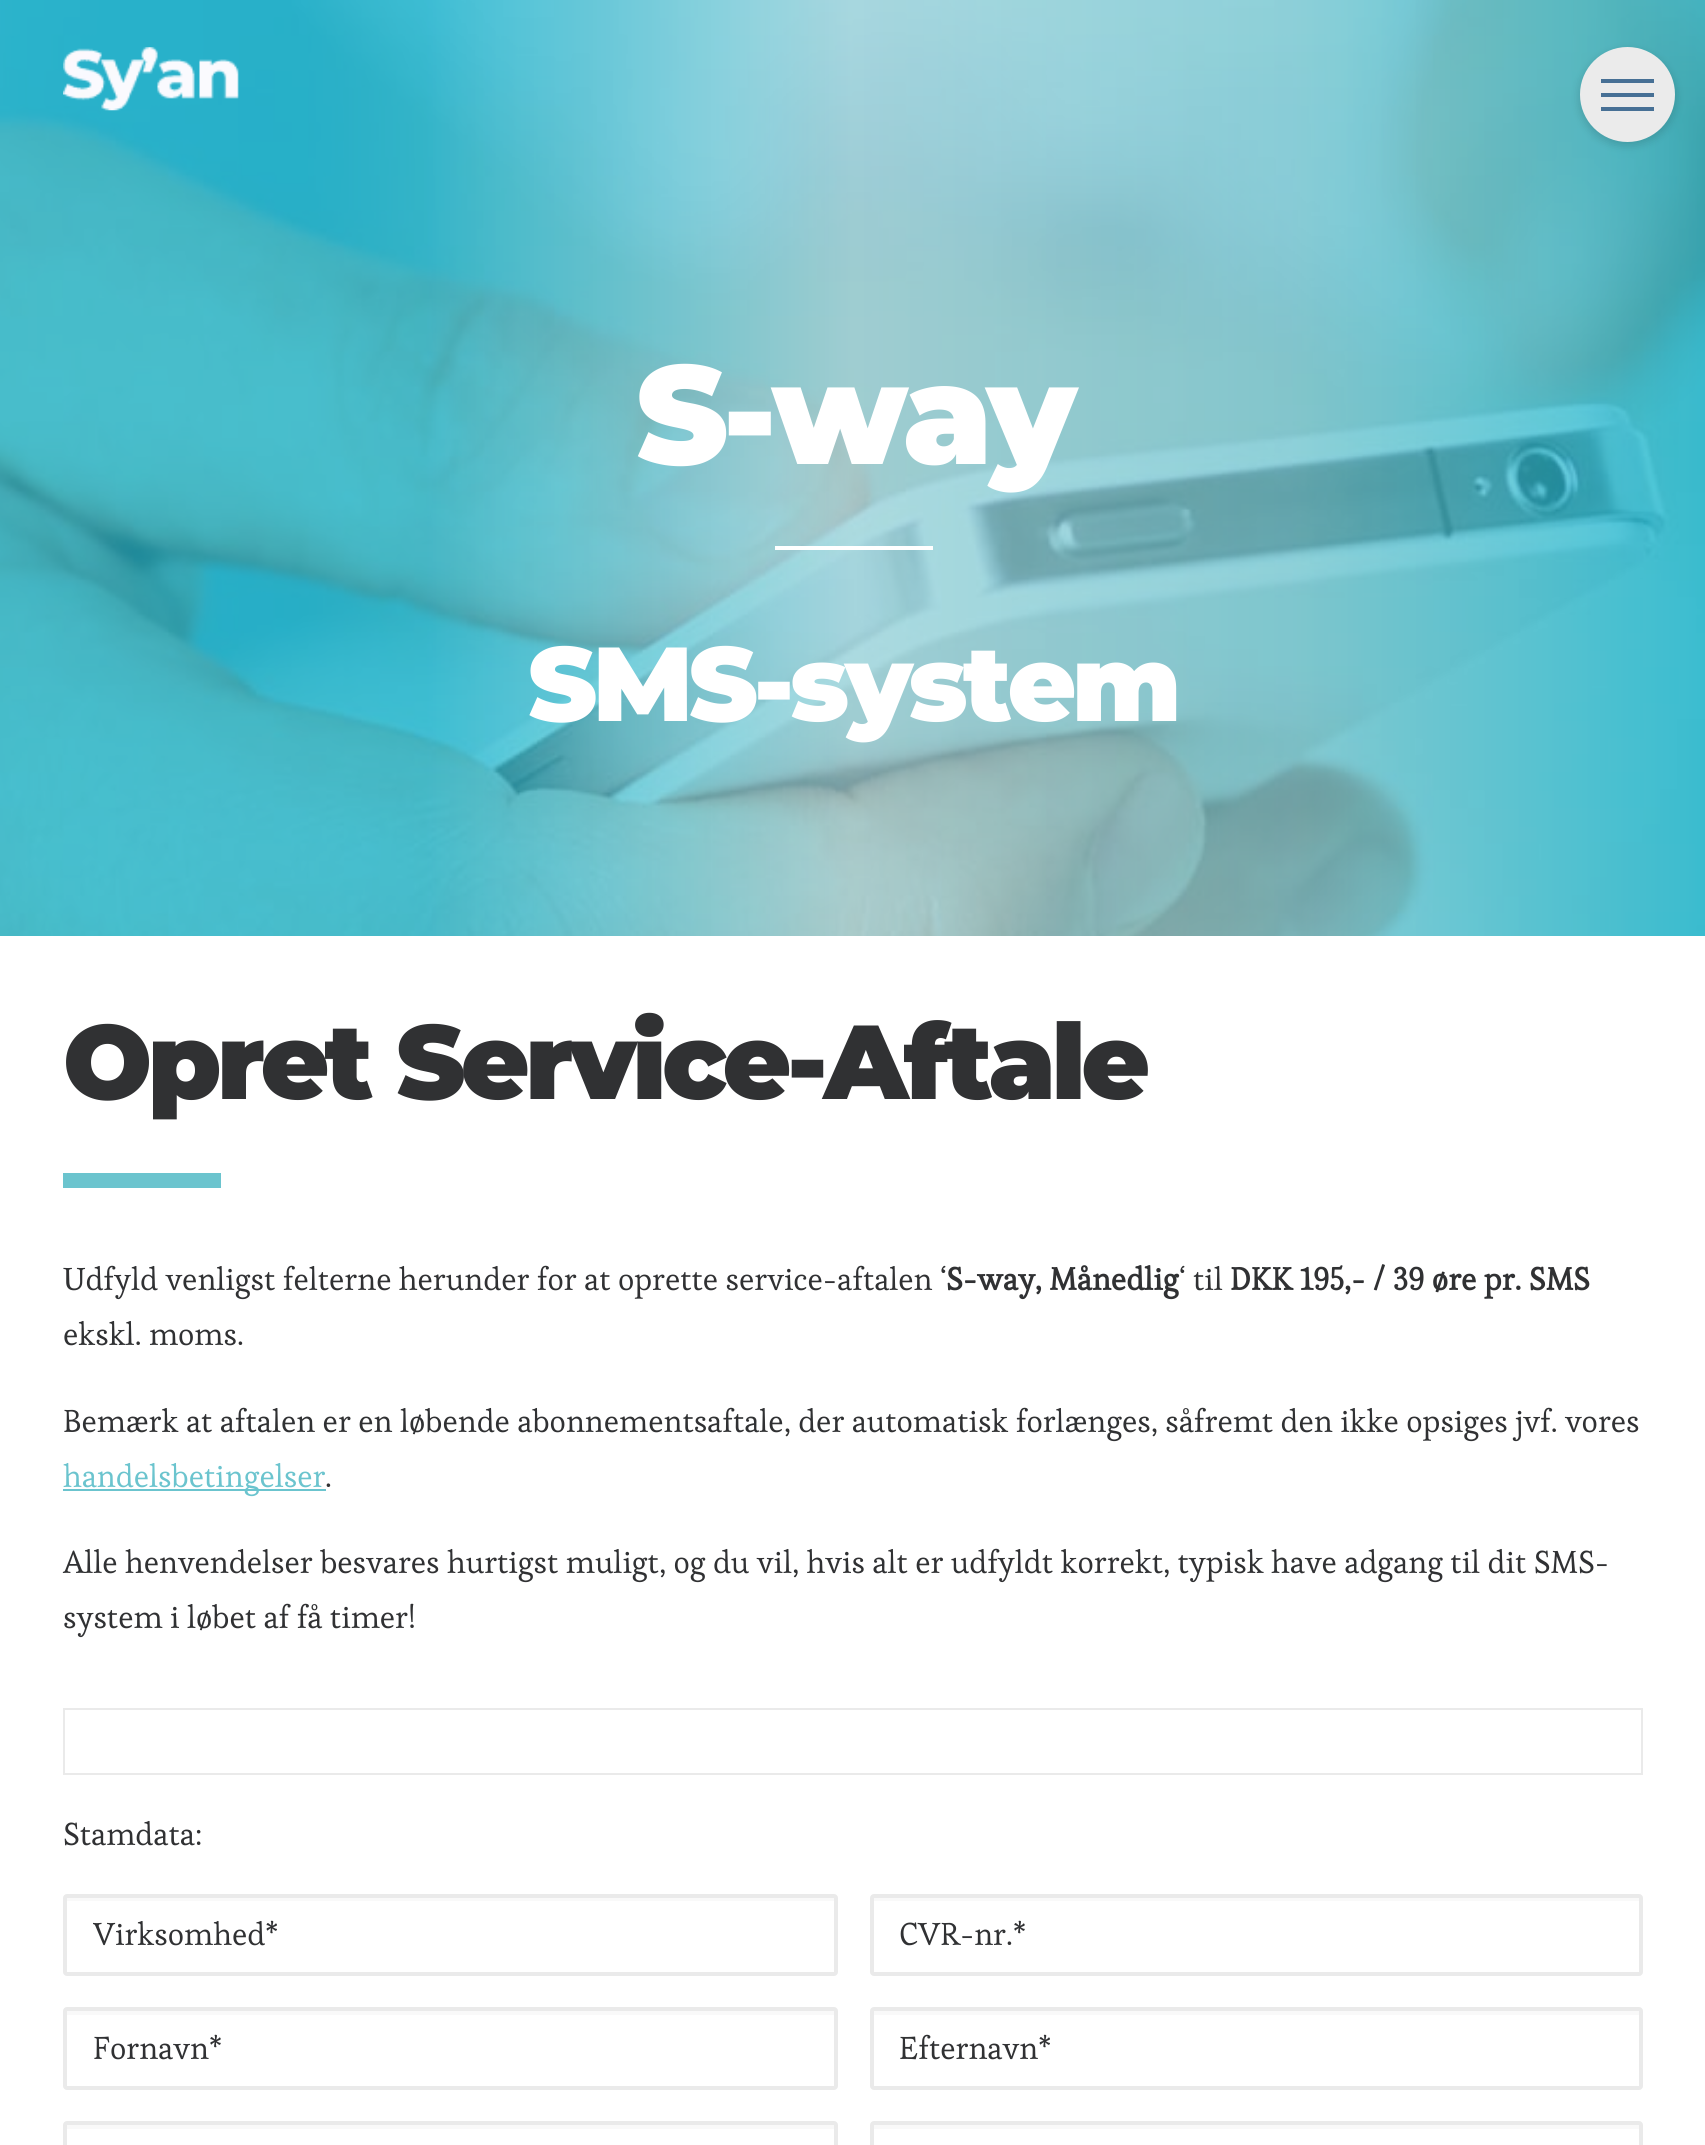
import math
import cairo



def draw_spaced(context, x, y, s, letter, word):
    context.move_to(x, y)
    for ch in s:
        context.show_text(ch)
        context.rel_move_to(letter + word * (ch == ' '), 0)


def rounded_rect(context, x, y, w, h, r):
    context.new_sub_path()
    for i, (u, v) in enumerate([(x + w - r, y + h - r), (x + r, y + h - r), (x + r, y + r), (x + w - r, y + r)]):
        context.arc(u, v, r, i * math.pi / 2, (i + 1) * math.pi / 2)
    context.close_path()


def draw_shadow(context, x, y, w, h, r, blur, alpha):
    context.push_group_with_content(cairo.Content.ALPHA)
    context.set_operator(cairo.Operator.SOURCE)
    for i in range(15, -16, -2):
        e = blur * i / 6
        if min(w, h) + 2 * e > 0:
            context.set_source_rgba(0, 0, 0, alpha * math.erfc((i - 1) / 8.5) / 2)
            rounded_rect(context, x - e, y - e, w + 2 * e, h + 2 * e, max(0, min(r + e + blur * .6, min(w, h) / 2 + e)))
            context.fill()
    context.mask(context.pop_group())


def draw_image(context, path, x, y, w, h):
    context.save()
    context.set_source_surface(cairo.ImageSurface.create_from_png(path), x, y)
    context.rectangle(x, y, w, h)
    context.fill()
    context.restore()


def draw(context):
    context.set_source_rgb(1, 1, 1)
    context.paint()
    draw_image(context, "images/2.png", 0, 0, 1705, 936)
    context.set_source_rgb(0, 0, 0)
    draw_shadow(context, 1580, 51, 95, 94, 47, 5, 0.16)
    context.set_source_rgb(235 / 255, 235 / 255, 235 / 255)
    context.arc(1627.5, 94.5, 45.5, 0, 2 * math.pi)
    context.fill_preserve()
    context.set_line_width(4)
    context.stroke()
    context.set_source_rgb(71 / 255, 112 / 255, 149 / 255)
    context.rectangle(1601, 93, 53, 4)
    context.fill()
    context.rectangle(1601, 79, 53, 4)
    context.fill()
    context.rectangle(1601, 107, 53, 4)
    context.fill()
    draw_image(context, "images/1.png", 63, 47, 176, 64)
    context.set_source_rgb(1, 1, 1)
    context.rectangle(775, 546, 158, 4)
    context.fill()
    context.set_source_rgb(107 / 255, 196 / 255, 206 / 255)
    context.rectangle(63, 1173, 158, 15)
    context.fill()
    context.rectangle(63, 1489, 263, 2)
    context.fill()
    context.rectangle(64, 1709, 1578, 65)
    context.set_source_rgb(234 / 255, 234 / 255, 234 / 255)
    context.set_line_width(2)
    context.stroke()
    context.set_source_rgb(249 / 255, 249 / 255, 249 / 255)
    context.rectangle(67, 1898, 768, 3)
    context.fill()
    rounded_rect(context, 65, 1896, 771, 78, 2)
    context.set_source_rgb(234 / 255, 234 / 255, 234 / 255)
    context.set_line_width(4)
    context.stroke()
    context.set_source_rgb(249 / 255, 249 / 255, 249 / 255)
    context.rectangle(873, 1898, 767, 3)
    context.fill()
    rounded_rect(context, 872, 1896, 769, 78, 2)
    context.set_source_rgb(234 / 255, 234 / 255, 234 / 255)
    context.stroke()
    context.set_source_rgb(249 / 255, 249 / 255, 249 / 255)
    context.rectangle(67, 2011, 768, 4)
    context.fill()
    rounded_rect(context, 65, 2009, 771, 79, 2)
    context.set_source_rgb(234 / 255, 234 / 255, 234 / 255)
    context.stroke()
    context.set_source_rgb(249 / 255, 249 / 255, 249 / 255)
    context.rectangle(873, 2011, 767, 4)
    context.fill()
    rounded_rect(context, 872, 2009, 769, 79, 2)
    context.set_source_rgb(234 / 255, 234 / 255, 234 / 255)
    context.stroke()
    context.set_source_rgb(249 / 255, 249 / 255, 249 / 255)
    context.rectangle(67, 2125, 768, 4)
    context.fill()
    rounded_rect(context, 65, 2123, 771, 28, 2)
    context.set_source_rgb(234 / 255, 234 / 255, 234 / 255)
    context.stroke()
    context.set_source_rgb(249 / 255, 249 / 255, 249 / 255)
    context.rectangle(873, 2125, 767, 4)
    context.fill()
    rounded_rect(context, 872, 2123, 769, 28, 2)
    context.set_source_rgb(234 / 255, 234 / 255, 234 / 255)
    context.stroke()
    context.select_font_face("Montserrat Black")
    context.set_font_size(140)
    context.set_source_rgb(1, 1, 1)
    draw_spaced(context, 636, 464, "S-way", -5.5, 0)
    context.set_font_size(105)
    draw_spaced(context, 528, 721, "SMS-system", -4.25, 0)
    context.set_source_rgb(48 / 255, 49 / 255, 51 / 255)
    draw_spaced(context, 63, 1099, "Opret Service-Aftale", -4.25, 0)
    context.select_font_face("Esteban")
    context.set_font_size(31.5)
    context.move_to(63, 1290)
    context.show_text("Udfyld venligst felterne herunder for at oprette service-aftalen ‘")
    context.select_font_face("Esteban", cairo.FontSlant.NORMAL, cairo.FontWeight.BOLD)
    context.move_to(946, 1290)
    context.show_text("S-way, Månedlig")
    context.select_font_face("Esteban")
    context.move_to(1179, 1290)
    context.show_text("‘ til")
    context.select_font_face("Esteban", cairo.FontSlant.NORMAL, cairo.FontWeight.BOLD)
    context.move_to(1230, 1290)
    context.show_text("DKK 195,- / 39 øre pr. SMS")
    context.select_font_face("Esteban")
    context.move_to(63, 1345)
    context.show_text("ekskl. moms.")
    context.move_to(63, 1432)
    context.show_text("Bemærk at aftalen er en løbende abonnementsaftale, der automatisk forlænges, såfremt den ikke opsiges jvf. vores")
    context.set_source_rgb(107 / 255, 196 / 255, 206 / 255)
    context.move_to(63, 1487)
    context.show_text("handelsbetingelser")
    context.set_source_rgb(48 / 255, 49 / 255, 51 / 255)
    context.move_to(325, 1487)
    context.show_text(".")
    context.move_to(63, 1573)
    context.show_text("Alle henvendelser besvares hurtigst muligt, og du vil, hvis alt er udfyldt korrekt, typisk have adgang til dit SMS-")
    context.move_to(63, 1628)
    context.show_text("system i løbet af få timer!")
    context.move_to(63, 1845)
    context.show_text("Stamdata:")
    context.save()
    context.rectangle(93, 1915, 716, 40)
    context.clip()
    context.move_to(93, 1945)
    context.show_text("Virksomhed*")
    context.restore()
    context.move_to(899, 1945)
    context.show_text("CVR-nr.*")
    context.move_to(93, 2059)
    context.show_text("Fornavn*")
    context.move_to(899, 2059)
    context.show_text("Efternavn*")


surface = cairo.ImageSurface(cairo.Format.RGB24, 1705, 2145)
context = cairo.Context(surface)
options = cairo.FontOptions()
options.set_hint_metrics(cairo.HintMetrics.OFF)
options.set_hint_style(cairo.HintStyle.NONE)
context.set_font_options(options)
context.set_miter_limit(4)
draw(context)
surface.write_to_png("out.png")
